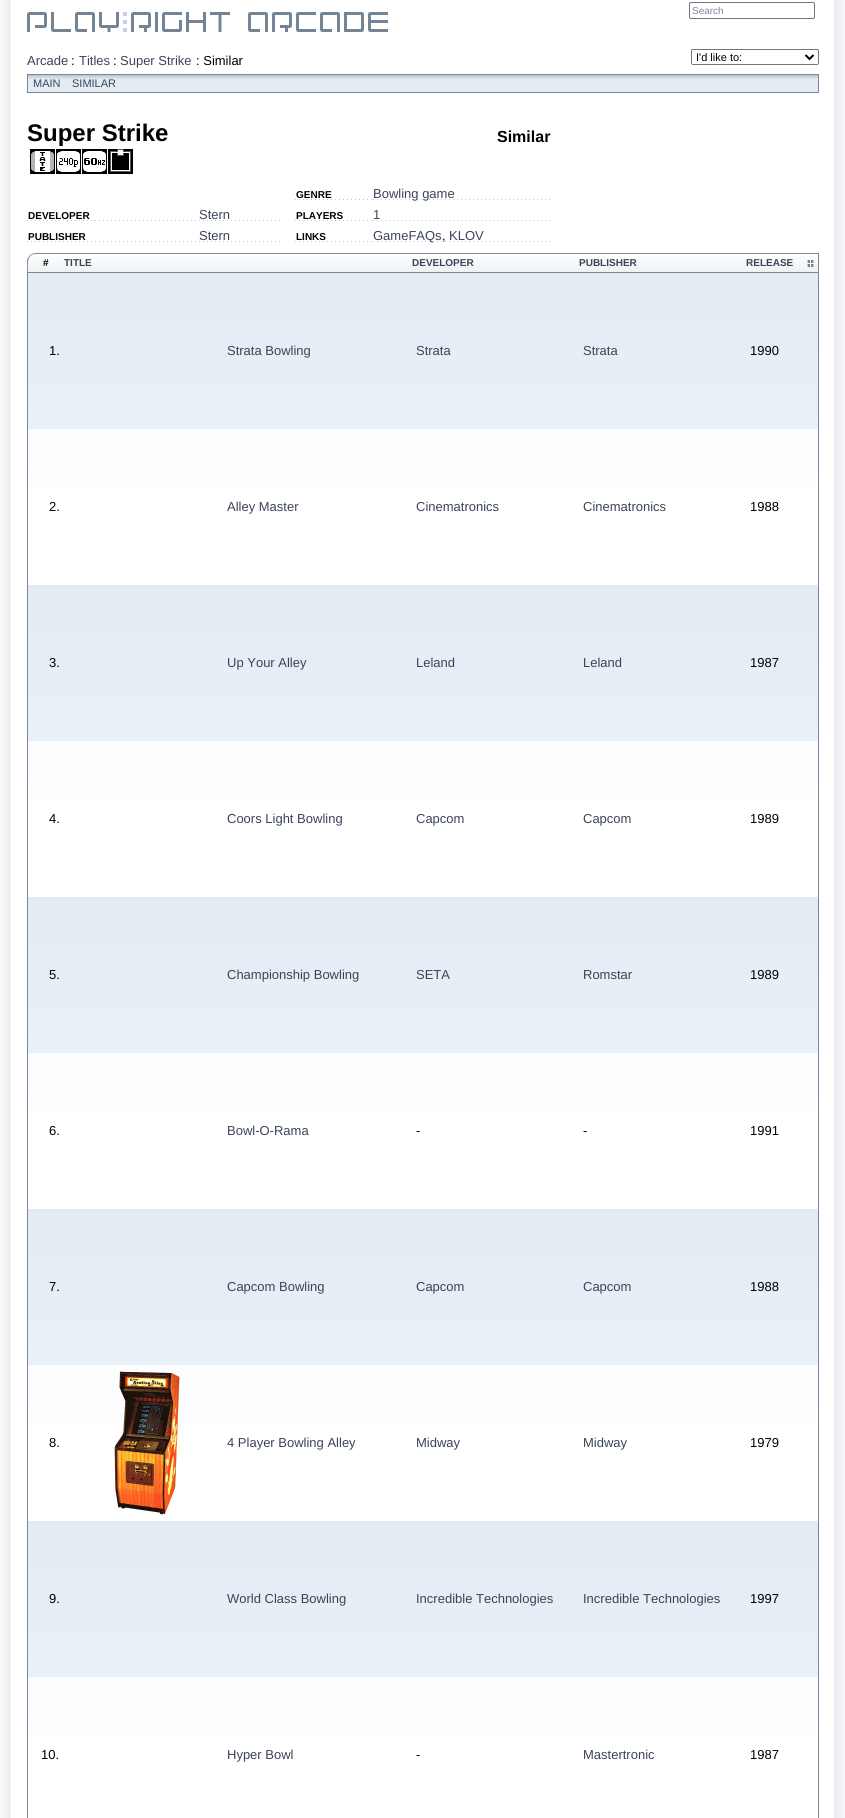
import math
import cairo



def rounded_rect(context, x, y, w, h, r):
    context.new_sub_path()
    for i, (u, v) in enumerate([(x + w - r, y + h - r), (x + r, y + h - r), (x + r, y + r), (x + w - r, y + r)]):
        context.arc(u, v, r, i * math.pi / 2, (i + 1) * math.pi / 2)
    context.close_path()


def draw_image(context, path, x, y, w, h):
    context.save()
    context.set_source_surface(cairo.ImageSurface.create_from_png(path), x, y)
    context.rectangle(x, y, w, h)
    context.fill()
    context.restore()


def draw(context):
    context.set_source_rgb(1, 1, 1)
    context.paint()
    draw_image(context, "images/1.png", 0, 0, 845, 1818)
    rounded_rect(context, 689.5, 2.5, 125, 16, 1.5)
    context.set_source_rgb(118 / 255, 118 / 255, 118 / 255)
    context.set_line_width(1)
    context.stroke()
    draw_image(context, "images/2.png", 27, 12, 361, 20)
    rounded_rect(context, 691.5, 49.5, 127, 15, 1.5)
    context.stroke()
    context.new_path()
    context.move_to(805.5, 55)
    context.line_to(809.5, 59)
    context.line_to(813.5, 55)
    context.set_source_rgb(0, 0, 0)
    context.set_line_width(2)
    context.stroke()
    context.set_source_rgb(227 / 255, 235 / 255, 243 / 255)
    context.rectangle(28, 79, 790, 13)
    context.fill()
    draw_image(context, "images/3.png", 28, 75, 790, 4)
    context.rectangle(27.5, 74.5, 791, 18)
    context.set_source_rgb(124 / 255, 134 / 255, 156 / 255)
    context.set_line_width(1)
    context.stroke()
    draw_image(context, "images/4.png", 30, 149, 25, 25)
    draw_image(context, "images/5.png", 56, 149, 25, 25)
    draw_image(context, "images/6.png", 82, 149, 25, 25)
    draw_image(context, "images/7.png", 108, 149, 25, 25)
    draw_image(context, "images/8.png", 27, 220, 169, 1)
    draw_image(context, "images/9.png", 199, 220, 81, 1)
    draw_image(context, "images/8.png", 27, 241, 169, 1)
    draw_image(context, "images/9.png", 199, 241, 81, 1)
    draw_image(context, "images/10.png", 295, 199, 77, 1)
    draw_image(context, "images/11.png", 373, 199, 177, 1)
    draw_image(context, "images/10.png", 295, 220, 77, 1)
    draw_image(context, "images/11.png", 373, 220, 177, 1)
    draw_image(context, "images/10.png", 295, 241, 77, 1)
    draw_image(context, "images/11.png", 373, 241, 177, 1)
    context.save()
    context.new_path()
    context.move_to(36, 253)
    context.line_to(64, 253)
    context.line_to(64, 273)
    context.line_to(27, 273)
    context.line_to(27, 262)
    context.curve_to(27, 257, 31, 253, 36, 253)
    context.close_path()
    context.clip()
    gradient = cairo.LinearGradient(46, 254, 46, 272)
    gradient.add_color_stop_rgba(0, 1, 1, 1, 1)
    gradient.add_color_stop_rgba(1, 236 / 255, 242 / 255, 244 / 255, 1)
    context.set_source(gradient)
    context.rectangle(27, 254, 37, 18)
    context.fill()
    context.restore()
    context.set_fill_rule(cairo.FillRule.EVEN_ODD)
    context.new_path()
    context.move_to(36, 253)
    context.line_to(64, 253)
    context.line_to(64, 273)
    context.line_to(27, 273)
    context.line_to(27, 262)
    context.curve_to(27, 257, 31, 253, 36, 253)
    context.close_path()
    context.move_to(36, 254)
    context.line_to(64, 254)
    context.line_to(64, 272)
    context.line_to(28, 272)
    context.curve_to(28, 265.5, 26, 254, 36, 254)
    context.close_path()
    context.fill()
    gradient = cairo.LinearGradient(238, 254, 238, 272)
    gradient.add_color_stop_rgba(0, 1, 1, 1, 1)
    gradient.add_color_stop_rgba(1, 236 / 255, 242 / 255, 244 / 255, 1)
    context.set_source(gradient)
    context.rectangle(64, 256, 348, 16)
    context.fill()
    context.set_source_rgb(124 / 255, 134 / 255, 156 / 255)
    context.rectangle(64, 253, 755, 1)
    context.fill()
    context.rectangle(64, 272, 682, 1)
    context.fill()
    gradient = cairo.LinearGradient(496, 254, 496, 272)
    gradient.add_color_stop_rgba(0, 1, 1, 1, 1)
    gradient.add_color_stop_rgba(1, 236 / 255, 242 / 255, 244 / 255, 1)
    context.set_source(gradient)
    context.rectangle(412, 256, 167, 16)
    context.fill()
    gradient = cairo.LinearGradient(663, 254, 663, 272)
    gradient.add_color_stop_rgba(0, 1, 1, 1, 1)
    gradient.add_color_stop_rgba(1, 236 / 255, 242 / 255, 244 / 255, 1)
    context.set_source(gradient)
    context.rectangle(579, 256, 167, 16)
    context.fill()
    gradient = cairo.LinearGradient(782, 254, 782, 272)
    gradient.add_color_stop_rgba(0, 1, 1, 1, 1)
    gradient.add_color_stop_rgba(1, 236 / 255, 242 / 255, 244 / 255, 1)
    context.set_source(gradient)
    context.rectangle(746, 256, 72, 16)
    context.fill()
    context.set_source_rgb(124 / 255, 134 / 255, 156 / 255)
    context.rectangle(818, 253, 1, 1565)
    context.fill()
    context.rectangle(746, 272, 73, 1)
    context.fill()
    draw_image(context, "images/12.png", 807, 260, 7, 7)
    gradient = cairo.LinearGradient(423, 273, 423, 429)
    gradient.add_color_stop_rgba(0, 227 / 255, 235 / 255, 243 / 255, 1)
    gradient.add_color_stop_rgba(1, 232 / 255, 240 / 255, 248 / 255, 1)
    context.set_source(gradient)
    context.rectangle(28, 273, 790, 156)
    context.fill()
    context.set_source_rgb(124 / 255, 134 / 255, 156 / 255)
    context.rectangle(27, 273, 1, 1545)
    context.fill()
    gradient = cairo.LinearGradient(423, 429, 423, 585)
    gradient.add_color_stop_rgba(0, 251 / 255, 253 / 255, 1, 1)
    gradient.add_color_stop_rgba(1, 1, 1, 1, 1)
    context.set_source(gradient)
    context.rectangle(28, 429, 790, 58)
    context.fill()
    gradient = cairo.LinearGradient(423, 585, 423, 741)
    gradient.add_color_stop_rgba(0, 227 / 255, 235 / 255, 243 / 255, 1)
    gradient.add_color_stop_rgba(1, 232 / 255, 240 / 255, 248 / 255, 1)
    context.set_source(gradient)
    context.rectangle(28, 585, 790, 156)
    context.fill()
    gradient = cairo.LinearGradient(423, 741, 423, 897)
    gradient.add_color_stop_rgba(0, 251 / 255, 253 / 255, 1, 1)
    gradient.add_color_stop_rgba(1, 1, 1, 1, 1)
    context.set_source(gradient)
    context.rectangle(28, 741, 790, 58)
    context.fill()
    gradient = cairo.LinearGradient(423, 897, 423, 1053)
    gradient.add_color_stop_rgba(0, 227 / 255, 235 / 255, 243 / 255, 1)
    gradient.add_color_stop_rgba(1, 232 / 255, 240 / 255, 248 / 255, 1)
    context.set_source(gradient)
    context.rectangle(28, 897, 790, 156)
    context.fill()
    gradient = cairo.LinearGradient(423, 1053, 423, 1209)
    gradient.add_color_stop_rgba(0, 251 / 255, 253 / 255, 1, 1)
    gradient.add_color_stop_rgba(1, 1, 1, 1, 1)
    context.set_source(gradient)
    context.rectangle(28, 1053, 790, 58)
    context.fill()
    gradient = cairo.LinearGradient(423, 1209, 423, 1365)
    gradient.add_color_stop_rgba(0, 227 / 255, 235 / 255, 243 / 255, 1)
    gradient.add_color_stop_rgba(1, 232 / 255, 240 / 255, 248 / 255, 1)
    context.set_source(gradient)
    context.rectangle(28, 1209, 790, 156)
    context.fill()
    gradient = cairo.LinearGradient(423, 1365, 423, 1521)
    gradient.add_color_stop_rgba(0, 251 / 255, 253 / 255, 1, 1)
    gradient.add_color_stop_rgba(1, 1, 1, 1, 1)
    context.set_source(gradient)
    context.rectangle(28, 1365, 790, 58)
    context.fill()
    draw_image(context, "images/13.png", 114, 1371, 66, 144)
    gradient = cairo.LinearGradient(423, 1521, 423, 1677)
    gradient.add_color_stop_rgba(0, 227 / 255, 235 / 255, 243 / 255, 1)
    gradient.add_color_stop_rgba(1, 232 / 255, 240 / 255, 248 / 255, 1)
    context.set_source(gradient)
    context.rectangle(28, 1521, 790, 156)
    context.fill()
    gradient = cairo.LinearGradient(423, 1677, 423, 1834)
    gradient.add_color_stop_rgba(0, 251 / 255, 253 / 255, 1, 1)
    gradient.add_color_stop_rgba(1, 1, 1, 1, 1)
    context.set_source(gradient)
    context.rectangle(28, 1677, 790, 59)
    context.fill()
    context.select_font_face("Liberation Sans")
    context.set_font_size(10)
    context.set_source_rgb(124 / 255, 134 / 255, 156 / 255)
    context.move_to(692, 14)
    context.show_text("Search")
    context.set_font_size(13)
    context.set_source_rgb(58 / 255, 68 / 255, 88 / 255)
    context.move_to(27, 65)
    context.show_text("Arcade")
    context.set_source_rgb(0, 0, 0)
    context.move_to(71, 65)
    context.show_text(":")
    context.set_source_rgb(58 / 255, 68 / 255, 88 / 255)
    context.move_to(79, 65)
    context.show_text("Titles")
    context.set_source_rgb(0, 0, 0)
    context.move_to(113, 65)
    context.show_text(":")
    context.set_source_rgb(58 / 255, 68 / 255, 88 / 255)
    context.move_to(120, 65)
    context.show_text("Super Strike")
    context.set_source_rgb(0, 0, 0)
    context.move_to(196, 65)
    context.show_text(": Similar")
    context.set_font_size(11)
    context.move_to(696, 61)
    context.show_text("I'd like to:")
    context.set_source_rgb(58 / 255, 68 / 255, 88 / 255)
    context.move_to(33, 87)
    context.show_text("MAIN")
    context.move_to(72, 87)
    context.show_text("SIMILAR")
    context.select_font_face("Liberation Sans", cairo.FontSlant.NORMAL, cairo.FontWeight.BOLD)
    context.set_font_size(24)
    context.set_source_rgb(0, 0, 0)
    context.move_to(27, 141)
    context.show_text("Super Strike")
    context.set_font_size(16)
    context.move_to(497, 142)
    context.show_text("Similar")
    context.set_font_size(10)
    context.move_to(28, 219)
    context.show_text("DEVELOPER")
    context.select_font_face("Liberation Sans")
    context.set_font_size(13)
    context.set_source_rgb(58 / 255, 68 / 255, 88 / 255)
    context.move_to(199, 219)
    context.show_text("Stern")
    context.select_font_face("Liberation Sans", cairo.FontSlant.NORMAL, cairo.FontWeight.BOLD)
    context.set_font_size(10)
    context.set_source_rgb(0, 0, 0)
    context.move_to(28, 240)
    context.show_text("PUBLISHER")
    context.select_font_face("Liberation Sans")
    context.set_font_size(13)
    context.set_source_rgb(58 / 255, 68 / 255, 88 / 255)
    context.move_to(199, 240)
    context.show_text("Stern")
    context.select_font_face("Liberation Sans", cairo.FontSlant.NORMAL, cairo.FontWeight.BOLD)
    context.set_font_size(10)
    context.set_source_rgb(0, 0, 0)
    context.move_to(296, 198)
    context.show_text("GENRE")
    context.select_font_face("Liberation Sans")
    context.set_font_size(13)
    context.set_source_rgb(58 / 255, 68 / 255, 88 / 255)
    context.move_to(373, 198)
    context.show_text("Bowling game")
    context.select_font_face("Liberation Sans", cairo.FontSlant.NORMAL, cairo.FontWeight.BOLD)
    context.set_font_size(10)
    context.set_source_rgb(0, 0, 0)
    context.move_to(296, 219)
    context.show_text("PLAYERS")
    context.select_font_face("Liberation Sans")
    context.set_font_size(13)
    context.set_source_rgb(58 / 255, 68 / 255, 88 / 255)
    context.move_to(373, 219)
    context.show_text("1")
    context.select_font_face("Liberation Sans", cairo.FontSlant.NORMAL, cairo.FontWeight.BOLD)
    context.set_font_size(10)
    context.set_source_rgb(0, 0, 0)
    context.move_to(296, 240)
    context.show_text("LINKS")
    context.select_font_face("Liberation Sans")
    context.set_font_size(13)
    context.set_source_rgb(58 / 255, 68 / 255, 88 / 255)
    context.move_to(373, 240)
    context.show_text("GameFAQs")
    context.set_source_rgb(0, 0, 0)
    context.move_to(442, 240)
    context.show_text(",")
    context.set_source_rgb(58 / 255, 68 / 255, 88 / 255)
    context.move_to(449, 240)
    context.show_text("KLOV")
    context.select_font_face("Liberation Sans", cairo.FontSlant.NORMAL, cairo.FontWeight.BOLD)
    context.set_font_size(10)
    context.set_source_rgb(0, 0, 0)
    context.move_to(43, 266)
    context.show_text("#")
    context.set_source_rgb(58 / 255, 68 / 255, 88 / 255)
    context.move_to(64, 266)
    context.show_text("TITLE")
    context.move_to(412, 266)
    context.show_text("DEVELOPER")
    context.move_to(579, 266)
    context.show_text("PUBLISHER")
    context.move_to(746, 266)
    context.show_text("RELEASE")
    context.select_font_face("Liberation Sans")
    context.set_font_size(13)
    context.set_source_rgb(0, 0, 0)
    context.move_to(49, 355)
    context.show_text("1.")
    context.set_source_rgb(58 / 255, 68 / 255, 88 / 255)
    context.move_to(227, 355)
    context.show_text("Strata Bowling")
    context.move_to(416, 355)
    context.show_text("Strata")
    context.move_to(583, 355)
    context.show_text("Strata")
    context.set_source_rgb(0, 0, 0)
    context.move_to(750, 355)
    context.show_text("1990")
    context.move_to(49, 511)
    context.show_text("2.")
    context.set_source_rgb(58 / 255, 68 / 255, 88 / 255)
    context.move_to(227, 511)
    context.show_text("Alley Master")
    context.move_to(416, 511)
    context.show_text("Cinematronics")
    context.move_to(583, 511)
    context.show_text("Cinematronics")
    context.set_source_rgb(0, 0, 0)
    context.move_to(750, 511)
    context.show_text("1988")
    context.move_to(49, 667)
    context.show_text("3.")
    context.set_source_rgb(58 / 255, 68 / 255, 88 / 255)
    context.move_to(227, 667)
    context.show_text("Up Your Alley")
    context.move_to(416, 667)
    context.show_text("Leland")
    context.move_to(583, 667)
    context.show_text("Leland")
    context.set_source_rgb(0, 0, 0)
    context.move_to(750, 667)
    context.show_text("1987")
    context.move_to(49, 823)
    context.show_text("4.")
    context.set_source_rgb(58 / 255, 68 / 255, 88 / 255)
    context.move_to(227, 823)
    context.show_text("Coors Light Bowling")
    context.move_to(416, 823)
    context.show_text("Capcom")
    context.move_to(583, 823)
    context.show_text("Capcom")
    context.set_source_rgb(0, 0, 0)
    context.move_to(750, 823)
    context.show_text("1989")
    context.move_to(49, 979)
    context.show_text("5.")
    context.set_source_rgb(58 / 255, 68 / 255, 88 / 255)
    context.move_to(227, 979)
    context.show_text("Championship Bowling")
    context.move_to(416, 979)
    context.show_text("SETA")
    context.move_to(583, 979)
    context.show_text("Romstar")
    context.set_source_rgb(0, 0, 0)
    context.move_to(750, 979)
    context.show_text("1989")
    context.move_to(49, 1135)
    context.show_text("6.")
    context.set_source_rgb(58 / 255, 68 / 255, 88 / 255)
    context.move_to(227, 1135)
    context.show_text("Bowl-O-Rama")
    context.set_source_rgb(0, 0, 0)
    context.move_to(416, 1135)
    context.show_text("-")
    context.move_to(583, 1135)
    context.show_text("-")
    context.move_to(750, 1135)
    context.show_text("1991")
    context.move_to(49, 1291)
    context.show_text("7.")
    context.set_source_rgb(58 / 255, 68 / 255, 88 / 255)
    context.move_to(227, 1291)
    context.show_text("Capcom Bowling")
    context.move_to(416, 1291)
    context.show_text("Capcom")
    context.move_to(583, 1291)
    context.show_text("Capcom")
    context.set_source_rgb(0, 0, 0)
    context.move_to(750, 1291)
    context.show_text("1988")
    context.move_to(49, 1447)
    context.show_text("8.")
    context.set_source_rgb(58 / 255, 68 / 255, 88 / 255)
    context.move_to(227, 1447)
    context.show_text("4 Player Bowling Alley")
    context.move_to(416, 1447)
    context.show_text("Midway")
    context.move_to(583, 1447)
    context.show_text("Midway")
    context.set_source_rgb(0, 0, 0)
    context.move_to(750, 1447)
    context.show_text("1979")
    context.move_to(49, 1603)
    context.show_text("9.")
    context.set_source_rgb(58 / 255, 68 / 255, 88 / 255)
    context.move_to(227, 1603)
    context.show_text("World Class Bowling")
    context.move_to(416, 1603)
    context.show_text("Incredible Technologies")
    context.move_to(583, 1603)
    context.show_text("Incredible Technologies")
    context.set_source_rgb(0, 0, 0)
    context.move_to(750, 1603)
    context.show_text("1997")
    context.move_to(41, 1759)
    context.show_text("10.")
    context.set_source_rgb(58 / 255, 68 / 255, 88 / 255)
    context.move_to(227, 1759)
    context.show_text("Hyper Bowl")
    context.set_source_rgb(0, 0, 0)
    context.move_to(416, 1759)
    context.show_text("-")
    context.set_source_rgb(58 / 255, 68 / 255, 88 / 255)
    context.move_to(583, 1759)
    context.show_text("Mastertronic")
    context.set_source_rgb(0, 0, 0)
    context.move_to(750, 1759)
    context.show_text("1987")


surface = cairo.ImageSurface(cairo.Format.RGB24, 845, 1818)
context = cairo.Context(surface)
options = cairo.FontOptions()
options.set_hint_metrics(cairo.HintMetrics.OFF)
options.set_hint_style(cairo.HintStyle.NONE)
context.set_font_options(options)
context.set_miter_limit(4)
draw(context)
surface.write_to_png("out.png")
